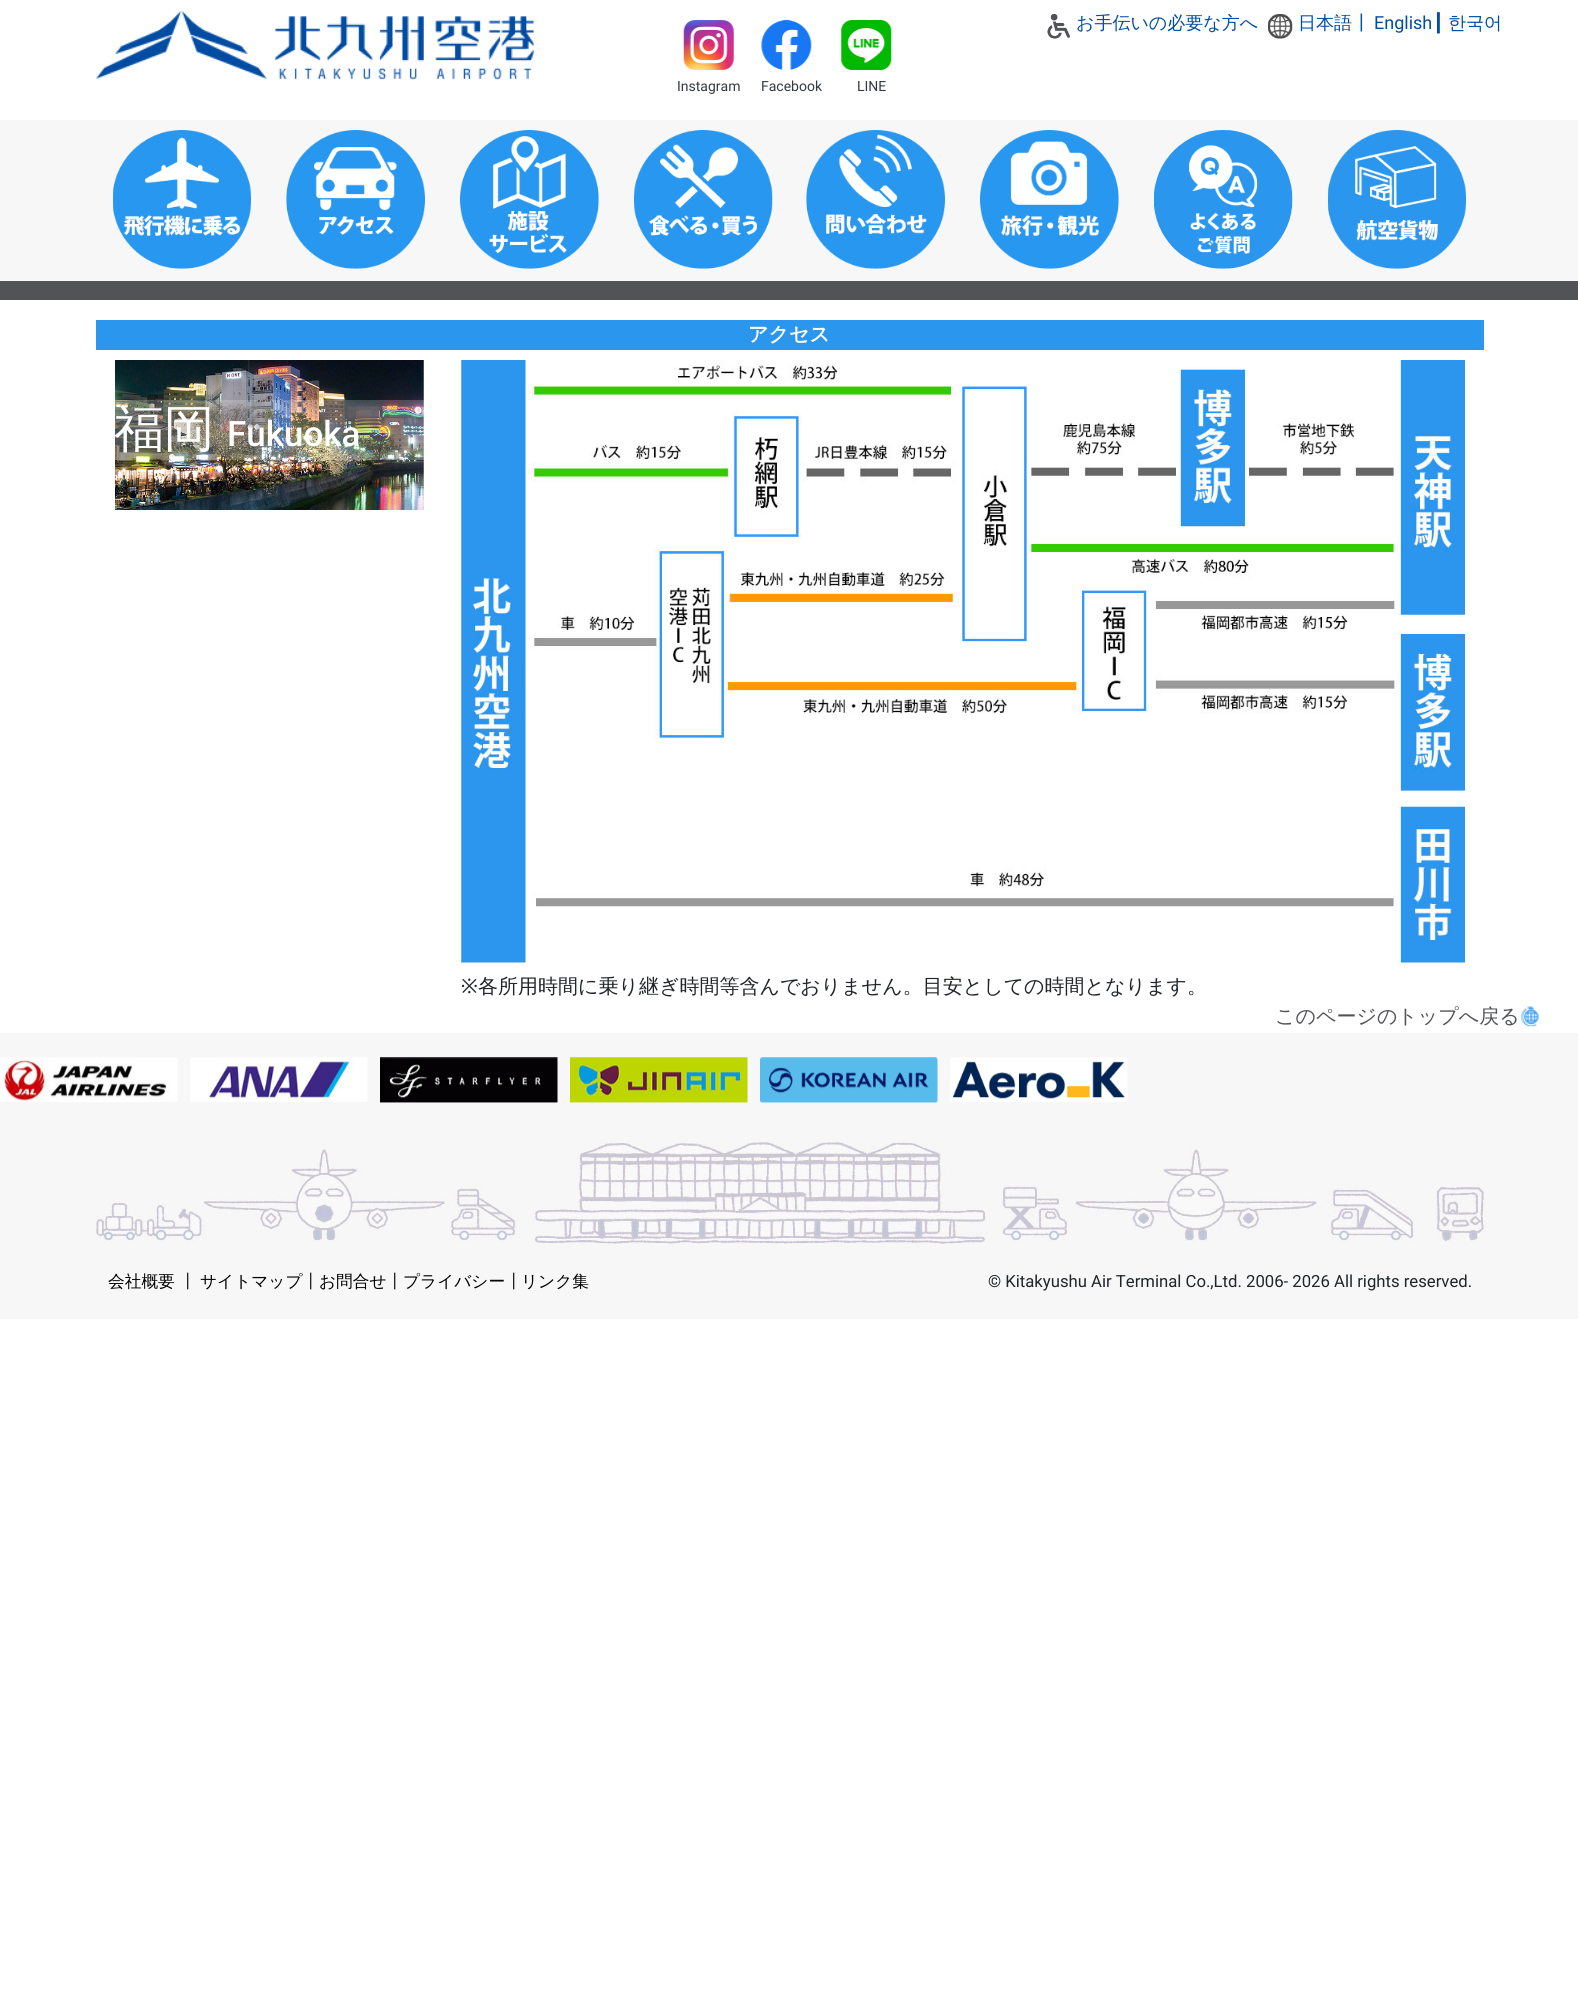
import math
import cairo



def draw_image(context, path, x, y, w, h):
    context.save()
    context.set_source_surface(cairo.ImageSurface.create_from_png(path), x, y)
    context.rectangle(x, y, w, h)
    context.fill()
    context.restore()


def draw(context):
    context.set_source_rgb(1, 1, 1)
    context.paint()
    draw_image(context, "images/1.png", 96, 11, 438, 69)
    draw_image(context, "images/2.png", 1047, 14, 23, 25)
    draw_image(context, "images/3.png", 1268, 14, 25, 25)
    draw_image(context, "images/4.png", 683, 20, 51, 50)
    draw_image(context, "images/5.png", 761, 20, 51, 50)
    draw_image(context, "images/6.png", 841, 20, 51, 50)
    context.set_source_rgb(247 / 255, 247 / 255, 247 / 255)
    context.rectangle(0, 120, 1578, 161)
    context.fill()
    draw_image(context, "images/7.png", 113, 130, 138, 139)
    draw_image(context, "images/8.png", 286, 130, 139, 139)
    draw_image(context, "images/9.png", 460, 130, 139, 139)
    draw_image(context, "images/10.png", 634, 130, 139, 139)
    draw_image(context, "images/11.png", 806, 130, 139, 139)
    draw_image(context, "images/12.png", 980, 130, 139, 139)
    draw_image(context, "images/13.png", 1154, 130, 139, 139)
    draw_image(context, "images/14.png", 1328, 130, 138, 139)
    context.set_source_rgb(81 / 255, 83 / 255, 86 / 255)
    context.rectangle(0, 281, 1578, 19)
    context.fill()
    context.set_source_rgb(43 / 255, 150 / 255, 238 / 255)
    context.rectangle(96, 320, 1388, 30)
    context.fill()
    draw_image(context, "images/15.png", 115, 360, 309, 150)
    context.set_source_rgba(1, 1, 1, 0.2)
    context.rectangle(115, 400, 309, 60)
    context.fill()
    draw_image(context, "images/16.png", 461, 360, 1004, 603)
    draw_image(context, "images/17.png", 1521, 1006, 18, 21)
    context.set_source_rgb(247 / 255, 247 / 255, 247 / 255)
    context.rectangle(0, 1033, 1578, 286)
    context.fill()
    draw_image(context, "images/18.png", 0, 1057, 178, 45)
    draw_image(context, "images/19.png", 190, 1057, 178, 45)
    draw_image(context, "images/20.png", 380, 1057, 178, 46)
    draw_image(context, "images/21.png", 570, 1057, 178, 46)
    draw_image(context, "images/22.png", 760, 1057, 178, 46)
    draw_image(context, "images/23.png", 950, 1057, 178, 45)
    draw_image(context, "images/24.png", 96, 1140, 1388, 104)
    context.select_font_face("WenQuanYi Zen Hei Medium")
    context.set_font_size(18)
    context.set_source_rgb(0, 77 / 255, 161 / 255)
    context.move_to(1076, 29)
    context.show_text("お手伝いの必要な方へ")
    context.move_to(1298, 29)
    context.show_text("日本語┃")
    context.select_font_face("Roboto")
    context.move_to(1374, 29)
    context.show_text("English")
    context.select_font_face("DejaVu Sans")
    context.move_to(1433, 29)
    context.show_text("┃")
    context.select_font_face("WenQuanYi Zen Hei Medium")
    context.move_to(1448, 29)
    context.show_text("한국어")
    context.select_font_face("Roboto")
    context.set_font_size(14)
    context.set_source_rgb(52 / 255, 58 / 255, 64 / 255)
    context.move_to(677, 91)
    context.show_text("Instagram")
    context.move_to(761, 91)
    context.show_text("Facebook")
    context.move_to(857, 91)
    context.show_text("LINE")
    context.select_font_face("WenQuanYi Zen Hei", cairo.FontSlant.NORMAL, cairo.FontWeight.BOLD)
    context.set_font_size(20)
    context.set_source_rgb(1, 1, 1)
    context.move_to(748, 341)
    context.show_text("アクセス")
    context.select_font_face("WenQuanYi Zen Hei Medium")
    context.set_font_size(50)
    context.move_to(114, 446)
    context.show_text("福岡")
    context.select_font_face("Roboto Medium")
    context.set_font_size(35)
    context.move_to(227, 446)
    context.show_text("Fukuoka")
    context.select_font_face("Noto Sans")
    context.set_font_size(20)
    context.set_source_rgb(33 / 255, 37 / 255, 41 / 255)
    context.move_to(461, 993)
    context.show_text("※")
    context.select_font_face("WenQuanYi Zen Hei Medium")
    context.move_to(478, 993)
    context.show_text("各所用時間に乗り継ぎ時間等含んでおりません。目安としての時間となります。")
    context.set_source_rgb(81 / 255, 83 / 255, 86 / 255)
    context.move_to(1275, 1023)
    context.show_text("このページのトップへ戻る")
    context.set_font_size(16.7)
    context.set_source_rgb(0, 0, 0)
    context.move_to(108, 1287)
    context.show_text("会社概要")
    context.set_source_rgb(33 / 255, 37 / 255, 41 / 255)
    context.move_to(179, 1287)
    context.show_text("┃")
    context.set_source_rgb(0, 0, 0)
    context.move_to(200, 1287)
    context.show_text("サイトマップ")
    context.set_source_rgb(33 / 255, 37 / 255, 41 / 255)
    context.move_to(302, 1287)
    context.show_text("┃")
    context.set_source_rgb(0, 0, 0)
    context.move_to(319, 1287)
    context.show_text("お問合せ")
    context.set_source_rgb(33 / 255, 37 / 255, 41 / 255)
    context.move_to(386, 1287)
    context.show_text("┃")
    context.set_source_rgb(0, 0, 0)
    context.move_to(403, 1287)
    context.show_text("プライバシー")
    context.set_source_rgb(33 / 255, 37 / 255, 41 / 255)
    context.move_to(505, 1287)
    context.show_text("┃")
    context.set_source_rgb(0, 0, 0)
    context.move_to(521, 1287)
    context.show_text("リンク集")
    context.select_font_face("Roboto")
    context.set_source_rgb(33 / 255, 37 / 255, 41 / 255)
    context.move_to(988, 1287)
    context.show_text("© Kitakyushu Air Terminal Co.,Ltd. 2006- 2026 All rights reserved.")


surface = cairo.ImageSurface(cairo.Format.RGB24, 1578, 2001)
context = cairo.Context(surface)
options = cairo.FontOptions()
options.set_hint_metrics(cairo.HintMetrics.OFF)
options.set_hint_style(cairo.HintStyle.NONE)
context.set_font_options(options)
context.set_miter_limit(4)
draw(context)
surface.write_to_png("out.png")
